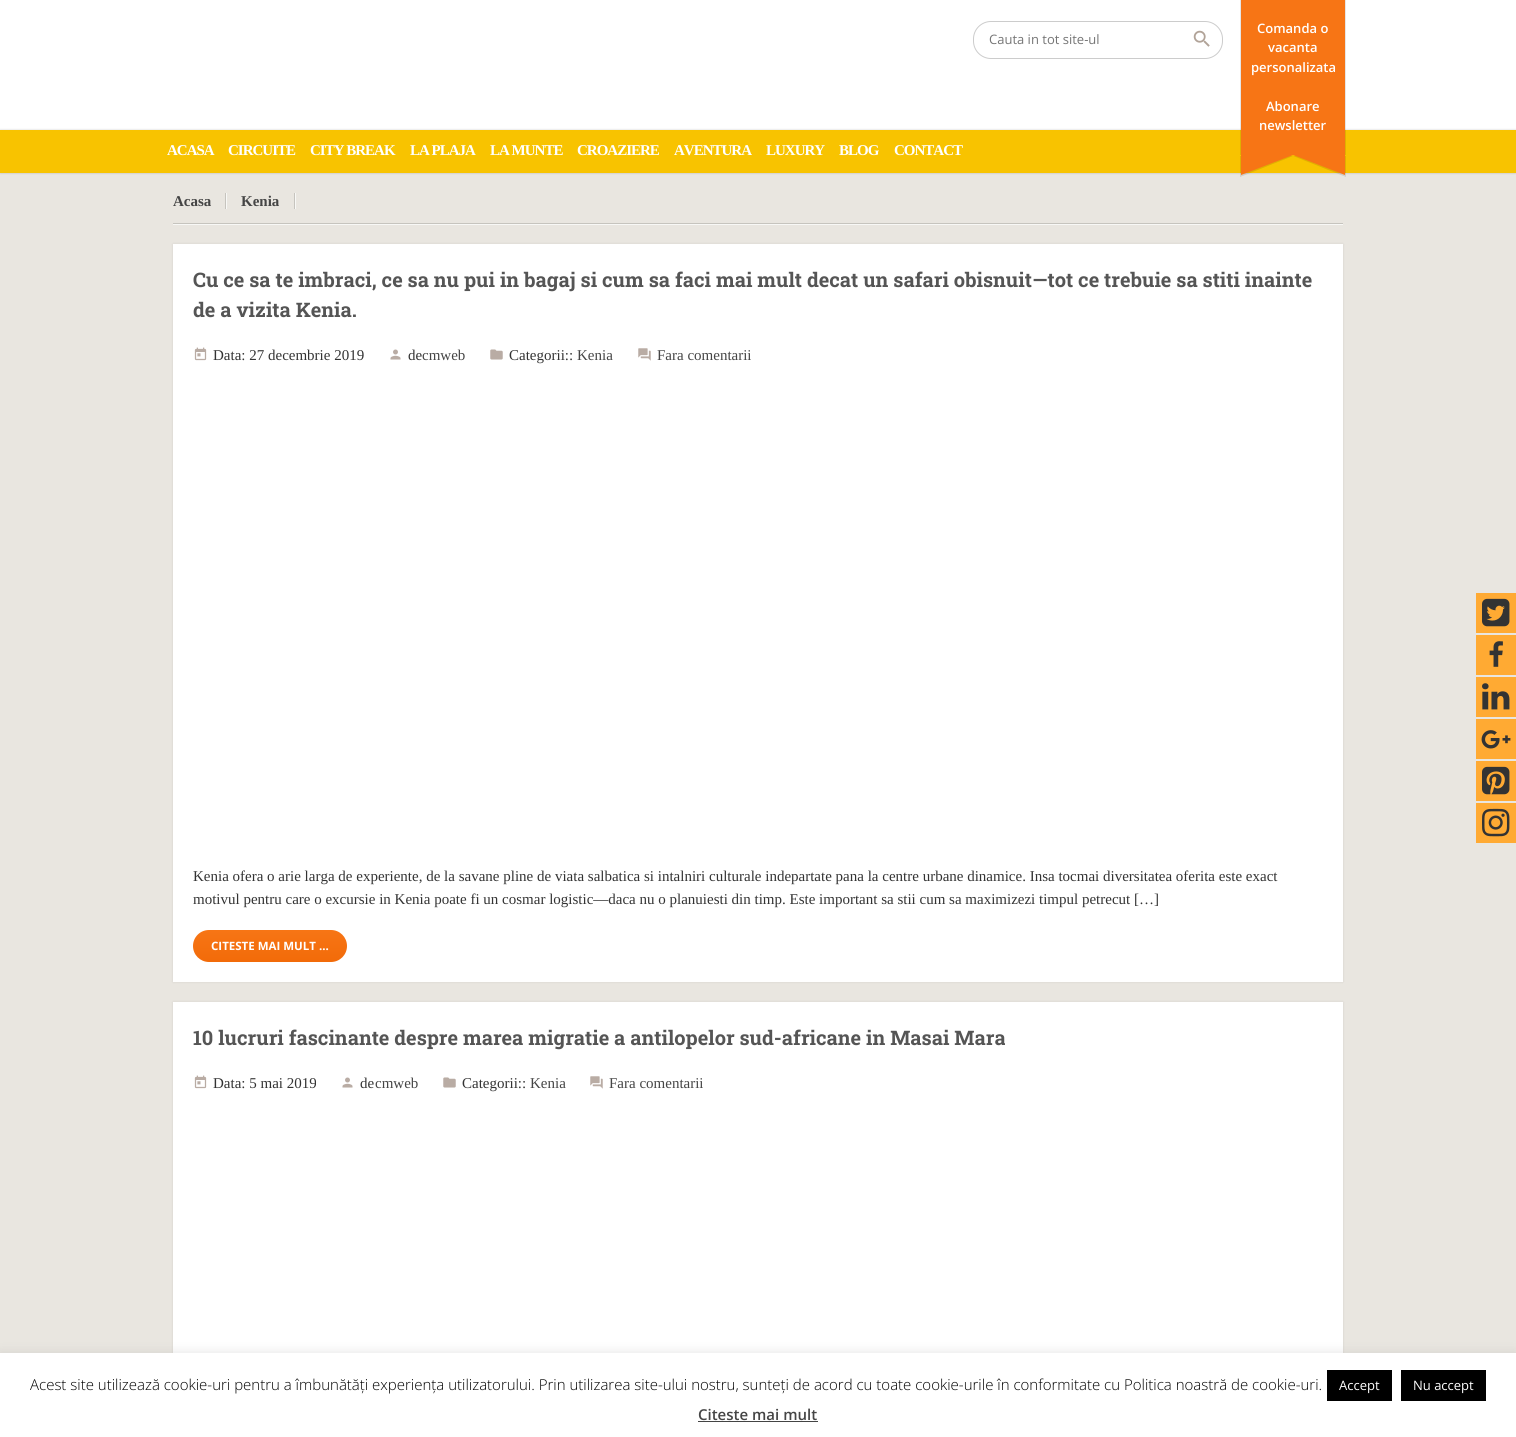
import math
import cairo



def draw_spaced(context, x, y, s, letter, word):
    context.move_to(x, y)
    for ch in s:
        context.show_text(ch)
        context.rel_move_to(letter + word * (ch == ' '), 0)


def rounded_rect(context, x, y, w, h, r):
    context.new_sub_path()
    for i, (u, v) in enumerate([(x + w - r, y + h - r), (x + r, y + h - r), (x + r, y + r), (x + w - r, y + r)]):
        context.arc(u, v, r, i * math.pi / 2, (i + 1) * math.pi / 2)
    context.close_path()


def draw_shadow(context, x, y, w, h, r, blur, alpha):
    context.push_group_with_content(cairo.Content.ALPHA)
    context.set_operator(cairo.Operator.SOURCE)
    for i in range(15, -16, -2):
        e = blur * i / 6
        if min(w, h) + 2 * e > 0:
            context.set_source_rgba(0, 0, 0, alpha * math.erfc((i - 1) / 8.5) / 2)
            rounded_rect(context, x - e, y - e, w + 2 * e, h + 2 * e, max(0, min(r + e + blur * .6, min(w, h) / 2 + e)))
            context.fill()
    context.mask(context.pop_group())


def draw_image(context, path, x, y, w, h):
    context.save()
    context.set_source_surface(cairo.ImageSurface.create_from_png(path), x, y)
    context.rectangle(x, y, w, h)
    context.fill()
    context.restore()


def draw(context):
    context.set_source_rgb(233 / 255, 230 / 255, 224 / 255)
    context.paint()
    context.set_source_rgb(1, 1, 1)
    context.rectangle(0, 0, 1516, 130)
    context.fill()
    rounded_rect(context, 973.5, 21.5, 249, 37, 17.5)
    context.set_source_rgb(204 / 255, 204 / 255, 204 / 255)
    context.set_line_width(1)
    context.stroke()
    draw_image(context, "images/1.png", 1193, 30, 17, 17)
    context.set_source_rgb(0, 0, 0)
    draw_shadow(context, 0, 130, 1516, 43, 0, 1, 0.2)
    context.set_source_rgb(248 / 255, 195 / 255, 0)
    context.rectangle(0, 130, 1516, 43)
    context.fill()
    context.set_source_rgba(0, 0, 0, 0.1)
    context.rectangle(1240, 0, 1, 155)
    context.fill()
    context.rectangle(1345, 0, 1, 155)
    context.fill()
    context.set_source_rgb(247 / 255, 117 / 255, 21 / 255)
    context.rectangle(1241, 0, 104, 155)
    context.fill()
    context.set_source_rgba(0, 0, 0, 0.1)
    context.new_path()
    context.move_to(1240, 156)
    context.line_to(1293, 156)
    context.line_to(1240, 177)
    context.close_path()
    context.fill()
    context.new_path()
    context.move_to(1346, 156)
    context.line_to(1346, 177)
    context.line_to(1293, 156)
    context.close_path()
    context.fill()
    context.set_source_rgb(247 / 255, 117 / 255, 21 / 255)
    context.new_path()
    context.move_to(1241, 155)
    context.line_to(1293, 155)
    context.line_to(1241, 175)
    context.close_path()
    context.fill()
    context.new_path()
    context.move_to(1345, 155)
    context.line_to(1345, 175)
    context.line_to(1293, 155)
    context.close_path()
    context.fill()
    context.set_source_rgb(248 / 255, 248 / 255, 246 / 255)
    context.rectangle(173, 224, 1170, 1)
    context.fill()
    context.set_source_rgb(198 / 255, 196 / 255, 190 / 255)
    context.rectangle(173, 223, 1170, 1)
    context.fill()
    context.set_source_rgb(248 / 255, 248 / 255, 246 / 255)
    context.rectangle(226, 193, 1, 16)
    context.fill()
    context.set_source_rgb(198 / 255, 196 / 255, 190 / 255)
    context.rectangle(225, 193, 1, 16)
    context.fill()
    context.set_source_rgb(248 / 255, 248 / 255, 246 / 255)
    context.rectangle(295, 193, 1, 16)
    context.fill()
    context.set_source_rgb(198 / 255, 196 / 255, 190 / 255)
    context.rectangle(294, 193, 1, 16)
    context.fill()
    context.set_source_rgb(0, 0, 0)
    draw_shadow(context, 173, 244, 1170, 738, 0, 1, 0.1)
    context.set_source_rgb(1, 1, 1)
    context.rectangle(173, 244, 1170, 738)
    context.fill()
    draw_image(context, "images/2.png", 194, 347, 13, 14)
    draw_image(context, "images/3.png", 390, 349, 11, 11)
    draw_image(context, "images/4.png", 490, 349, 13, 11)
    draw_image(context, "images/5.png", 638, 348, 13, 13)
    gradient = cairo.LinearGradient(270, 930, 270, 962)
    gradient.add_color_stop_rgba(0, 247 / 255, 117 / 255, 21 / 255, 1)
    gradient.add_color_stop_rgba(1, 242 / 255, 107 / 255, 9 / 255, 1)
    context.set_source(gradient)
    rounded_rect(context, 193, 930, 154, 32, 16)
    context.fill()
    context.set_source_rgb(0, 0, 0)
    draw_shadow(context, 173, 1002, 1170, 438, 0, 1, 0.1)
    context.set_source_rgb(1, 1, 1)
    context.rectangle(173, 1002, 1170, 351)
    context.fill()
    draw_image(context, "images/2.png", 194, 1075, 13, 14)
    draw_image(context, "images/3.png", 342, 1077, 11, 11)
    draw_image(context, "images/4.png", 443, 1077, 13, 11)
    draw_image(context, "images/5.png", 590, 1076, 13, 13)
    context.set_source_rgb(1, 170 / 255, 51 / 255)
    context.rectangle(1476, 593, 40, 40)
    context.fill()
    draw_image(context, "images/6.png", 1482, 598, 28, 29)
    context.rectangle(1476, 635, 40, 40)
    context.fill()
    draw_image(context, "images/7.png", 1489, 641, 14, 26)
    context.rectangle(1476, 677, 40, 40)
    context.fill()
    draw_image(context, "images/8.png", 1482, 683, 28, 27)
    context.rectangle(1476, 719, 40, 40)
    context.fill()
    draw_image(context, "images/9.png", 1481, 730, 30, 19)
    context.rectangle(1476, 761, 40, 40)
    context.fill()
    draw_image(context, "images/10.png", 1482, 766, 28, 29)
    context.rectangle(1476, 803, 40, 40)
    context.fill()
    draw_image(context, "images/11.png", 1482, 808, 28, 29)
    context.set_source_rgb(172 / 255, 171 / 255, 171 / 255)
    draw_shadow(context, 0, 1352, 1516, 84, 0, 5, 0.3)
    context.set_source_rgb(1, 1, 1)
    context.rectangle(0, 1353, 1516, 84)
    context.fill()
    context.set_source_rgb(0, 0, 0)
    context.rectangle(1327, 1370, 65, 31)
    context.fill()
    context.rectangle(1401, 1370, 85, 31)
    context.fill()
    context.set_source_rgb(68 / 255, 68 / 255, 68 / 255)
    context.rectangle(698, 1421, 120, 1)
    context.fill()
    context.select_font_face("Open Sans")
    context.set_font_size(13)
    context.set_source_rgb(117 / 255, 117 / 255, 117 / 255)
    context.move_to(989, 44)
    context.show_text("Cauta in tot site-ul")
    context.select_font_face("Open Sans SemiBold")
    context.set_source_rgb(1, 1, 1)
    context.move_to(1257, 33)
    context.show_text("Comanda o")
    context.move_to(1268, 52)
    context.show_text("vacanta")
    context.move_to(1251, 72)
    context.show_text("personalizata")
    context.move_to(1266, 111)
    context.show_text("Abonare")
    context.move_to(1259, 130)
    context.show_text("newsletter")
    context.select_font_face("Liberation Serif", cairo.FontSlant.NORMAL, cairo.FontWeight.BOLD)
    context.set_font_size(15)
    draw_spaced(context, 167, 155, "ACASA", -1, 0)
    draw_spaced(context, 228, 155, "CIRCUITE", -1, 0)
    draw_spaced(context, 310, 155, "CITY BREAK", -1, 0)
    draw_spaced(context, 410, 155, "LA PLAJA", -1, 0)
    draw_spaced(context, 490, 155, "LA MUNTE", -1, 0)
    draw_spaced(context, 577, 155, "CROAZIERE", -1, 0)
    draw_spaced(context, 674, 155, "AVENTURA", -1, 0)
    draw_spaced(context, 766, 155, "LUXURY", -1, 0)
    draw_spaced(context, 839, 155, "BLOG", -1, 0)
    draw_spaced(context, 894, 155, "CONTACT", -1, 0)
    context.set_source_rgb(69 / 255, 69 / 255, 69 / 255)
    context.move_to(173, 206)
    context.show_text("Acasa")
    context.move_to(241, 206)
    context.show_text("Kenia")
    context.select_font_face("Roboto Slab", cairo.FontSlant.NORMAL, cairo.FontWeight.BOLD)
    context.set_font_size(20)
    context.set_source_rgb(85 / 255, 85 / 255, 85 / 255)
    context.move_to(193, 287)
    context.show_text("Cu ce sa te imbraci, ce sa nu pui in bagaj si cum sa faci mai mult decat un safari obisnuit—tot ce trebuie sa stiti inainte")
    context.move_to(193, 317)
    context.show_text("de a vizita Kenia.")
    context.select_font_face("Liberation Serif")
    context.set_font_size(15)
    context.set_source_rgb(51 / 255, 51 / 255, 51 / 255)
    context.move_to(213, 360)
    context.show_text("Data: 27 decembrie 2019")
    context.move_to(408, 360)
    context.show_text("de")
    context.set_source_rgb(69 / 255, 69 / 255, 69 / 255)
    context.move_to(422, 360)
    context.show_text("cmweb")
    context.set_source_rgb(51 / 255, 51 / 255, 51 / 255)
    context.move_to(509, 360)
    context.show_text("Categorii::")
    context.set_source_rgb(69 / 255, 69 / 255, 69 / 255)
    context.move_to(577, 360)
    context.show_text("Kenia")
    context.move_to(657, 360)
    context.show_text("Fara comentarii")
    context.set_source_rgb(51 / 255, 51 / 255, 51 / 255)
    context.move_to(193, 881)
    context.show_text("Kenia ofera o arie larga de experiente, de la savane pline de viata salbatica si intalniri culturale indepartate pana la centre urbane dinamice. Insa tocmai diversitatea oferita este exact")
    context.move_to(193, 904)
    context.show_text("motivul pentru care o excursie in Kenia poate fi un cosmar logistic—daca nu o planuiesti din timp. Este important sa stii cum sa maximizezi timpul petrecut […]")
    context.select_font_face("Open Sans", cairo.FontSlant.NORMAL, cairo.FontWeight.BOLD)
    context.set_font_size(11.5)
    context.set_source_rgb(1, 1, 1)
    context.move_to(211, 950)
    context.show_text("CITESTE MAI MULT ...")
    context.select_font_face("Roboto Slab", cairo.FontSlant.NORMAL, cairo.FontWeight.BOLD)
    context.set_font_size(20)
    context.set_source_rgb(85 / 255, 85 / 255, 85 / 255)
    context.move_to(193, 1045)
    context.show_text("10 lucruri fascinante despre marea migratie a antilopelor sud-africane in Masai Mara")
    context.select_font_face("Liberation Serif")
    context.set_font_size(15)
    context.set_source_rgb(51 / 255, 51 / 255, 51 / 255)
    context.move_to(213, 1088)
    context.show_text("Data: 5 mai 2019")
    context.move_to(360, 1088)
    context.show_text("de")
    context.set_source_rgb(69 / 255, 69 / 255, 69 / 255)
    context.move_to(375, 1088)
    context.show_text("cmweb")
    context.set_source_rgb(51 / 255, 51 / 255, 51 / 255)
    context.move_to(462, 1088)
    context.show_text("Categorii::")
    context.set_source_rgb(69 / 255, 69 / 255, 69 / 255)
    context.move_to(530, 1088)
    context.show_text("Kenia")
    context.move_to(609, 1088)
    context.show_text("Fara comentarii")
    context.select_font_face("Open Sans Light")
    context.set_source_rgb(0, 0, 0)
    context.move_to(30, 1390)
    context.show_text("Acest site utilizează cookie-uri pentru a îmbunătăți experiența utilizatorului. Prin utilizarea site-ului nostru, sunteți de acord cu toate cookie-urile în conformitate cu Politica noastră de cookie-uri.")
    context.select_font_face("Open Sans")
    context.set_font_size(13)
    context.set_source_rgb(1, 1, 1)
    context.move_to(1339, 1390)
    context.show_text("Accept")
    context.move_to(1413, 1390)
    context.show_text("Nu accept")
    context.select_font_face("Open Sans SemiBold")
    context.set_font_size(15)
    context.set_source_rgb(69 / 255, 69 / 255, 69 / 255)
    context.move_to(698, 1420)
    context.show_text("Citeste mai mult")


surface = cairo.ImageSurface(cairo.Format.RGB24, 1516, 1437)
context = cairo.Context(surface)
options = cairo.FontOptions()
options.set_hint_metrics(cairo.HintMetrics.OFF)
options.set_hint_style(cairo.HintStyle.NONE)
context.set_font_options(options)
context.set_miter_limit(4)
draw(context)
surface.write_to_png("out.png")
